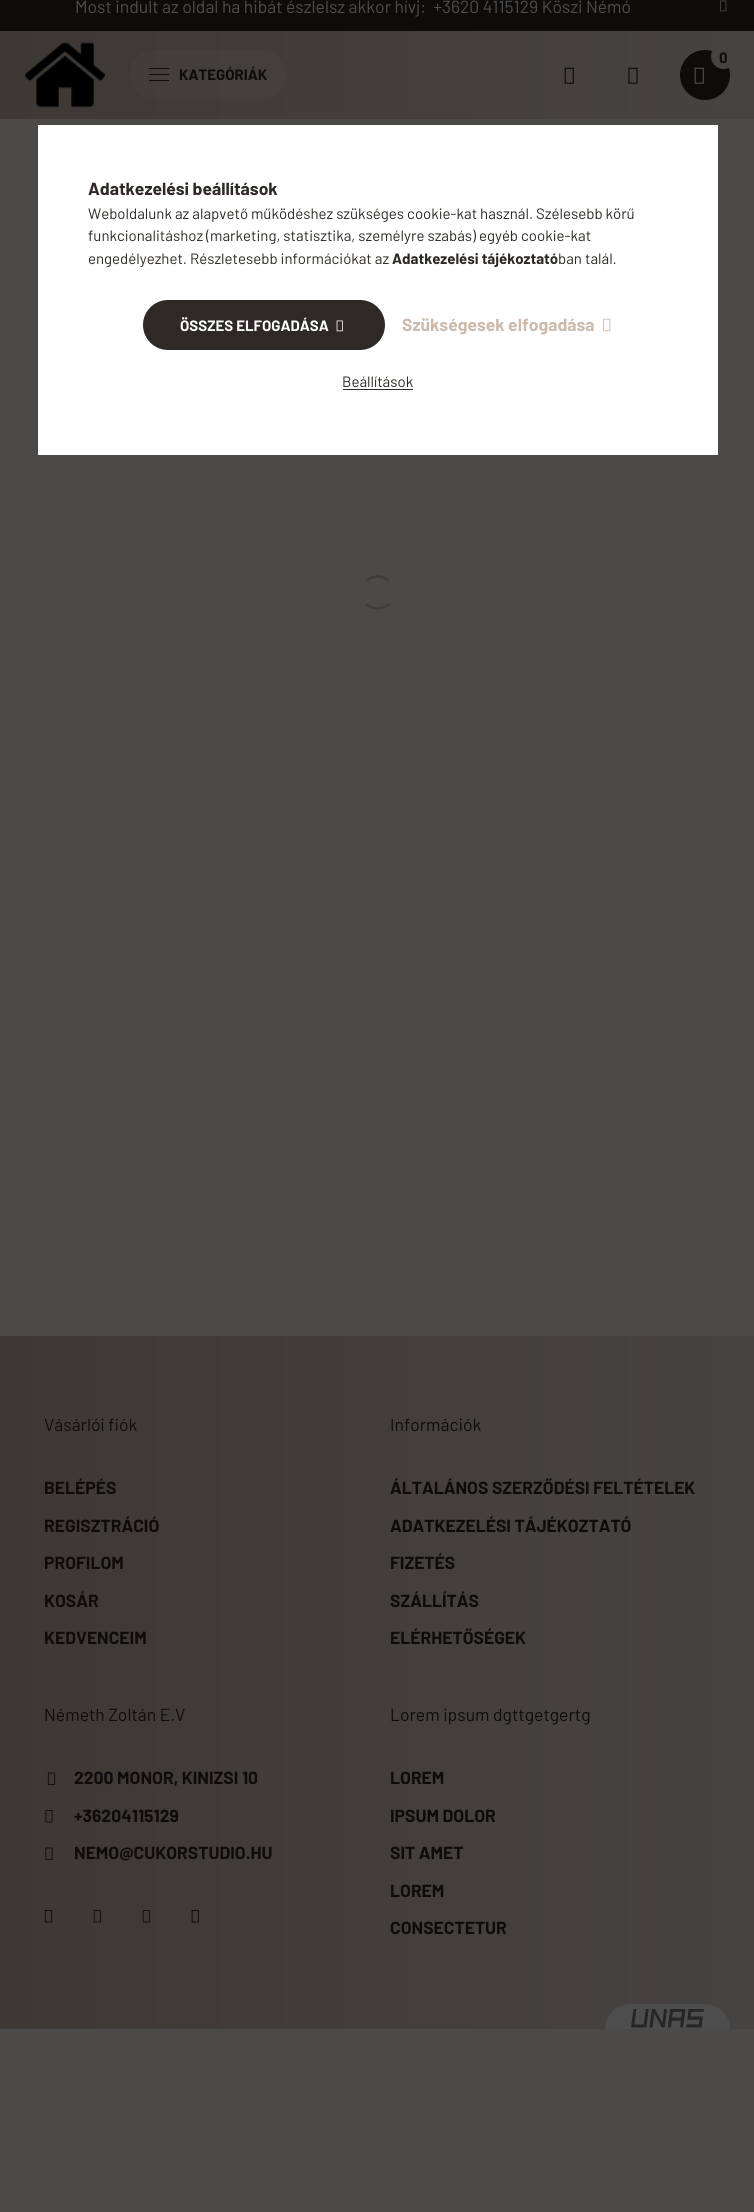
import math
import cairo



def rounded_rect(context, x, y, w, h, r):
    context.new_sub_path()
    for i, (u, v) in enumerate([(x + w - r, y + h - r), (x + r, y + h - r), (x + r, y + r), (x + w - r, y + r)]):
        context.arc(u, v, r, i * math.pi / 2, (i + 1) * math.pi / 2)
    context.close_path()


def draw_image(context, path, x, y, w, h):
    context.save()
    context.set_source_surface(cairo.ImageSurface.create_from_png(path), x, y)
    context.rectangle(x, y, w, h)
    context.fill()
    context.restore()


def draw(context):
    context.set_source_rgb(75 / 255, 74 / 255, 73 / 255)
    context.paint()
    context.set_source_rgb(14 / 255, 12 / 255, 11 / 255)
    context.rectangle(0, 0, 754, 31)
    context.fill()
    draw_image(context, "images/1.png", 720, 0, 7, 12)
    gradient = cairo.LinearGradient(0, 1106, 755, 1106)
    gradient.add_color_stop_rgba(0, 61 / 255, 56 / 255, 52 / 255, 1)
    gradient.add_color_stop_rgba(1, 70 / 255, 68 / 255, 67 / 255, 1)
    context.set_source(gradient)
    context.rectangle(0, 31, 754, 88)
    context.fill()
    context.set_source_rgb(14 / 255, 12 / 255, 11 / 255)
    context.arc(705, 75, 25, 0, 2 * math.pi)
    context.fill()
    gradient = cairo.LinearGradient(0, 1106, 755, 1106)
    gradient.add_color_stop_rgba(0, 61 / 255, 56 / 255, 52 / 255, 1)
    gradient.add_color_stop_rgba(1, 70 / 255, 68 / 255, 67 / 255, 1)
    context.set_source(gradient)
    context.arc(723.5, 56.5, 12.5, 0, 2 * math.pi)
    context.fill()
    draw_image(context, "images/2.png", 694, 67, 10, 17)
    draw_image(context, "images/3.png", 564, 67, 10, 17)
    draw_image(context, "images/4.png", 628, 67, 10, 17)
    draw_image(context, "images/5.png", 25, 42, 80, 66)
    context.set_source_rgba(77 / 255, 77 / 255, 77 / 255, 0.2)
    rounded_rect(context, 130, 50, 156, 50, 25)
    context.fill()
    context.set_source_rgb(14 / 255, 12 / 255, 11 / 255)
    context.rectangle(149, 68, 20, 1)
    context.fill()
    context.rectangle(149, 74, 20, 1)
    context.fill()
    context.rectangle(149, 80, 20, 1)
    context.fill()
    gradient = cairo.LinearGradient(25, 329, 730, 329)
    gradient.add_color_stop_rgba(0.1, 75 / 255, 74 / 255, 73 / 255, 1)
    gradient.add_color_stop_rgba(0.5, 66 / 255, 66 / 255, 66 / 255, 1)
    gradient.add_color_stop_rgba(0.9, 75 / 255, 74 / 255, 73 / 255, 1)
    context.set_source(gradient)
    context.rectangle(174, 318, 407, 22)
    context.fill()
    gradient = cairo.LinearGradient(378, 340, 378, 318)
    gradient.add_color_stop_rgba(0, 75 / 255, 74 / 255, 73 / 255, 1)
    gradient.add_color_stop_rgba(1, 75 / 255, 74 / 255, 73 / 255, 0)
    context.set_source(gradient)
    context.rectangle(174, 325, 407, 15)
    context.fill()
    context.new_path()
    context.move_to(366, 581)
    context.curve_to(372.5, 575, 382.5, 575, 389, 581)
    context.move_to(389, 604)
    context.curve_to(382.5, 610, 372.5, 610, 366, 604)
    context.set_source_rgb(61 / 255, 61 / 255, 61 / 255)
    context.set_line_width(2.5)
    context.stroke()
    gradient = cairo.LinearGradient(0, 1106, 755, 1106)
    gradient.add_color_stop_rgba(0, 61 / 255, 56 / 255, 52 / 255, 1)
    gradient.add_color_stop_rgba(1, 70 / 255, 68 / 255, 67 / 255, 1)
    context.set_source(gradient)
    context.rectangle(0, 1336, 754, 693)
    context.fill()
    draw_image(context, "images/6.png", 47, 1772, 9, 13)
    draw_image(context, "images/7.png", 45, 1810, 8, 13)
    draw_image(context, "images/8.png", 45, 1847, 8, 13)
    draw_image(context, "images/9.png", 44, 1910, 9, 13)
    draw_image(context, "images/10.png", 93, 1910, 8, 13)
    draw_image(context, "images/11.png", 142, 1910, 8, 13)
    draw_image(context, "images/12.png", 191, 1910, 8, 13)
    context.set_source_rgb(77 / 255, 77 / 255, 77 / 255)
    context.new_path()
    context.move_to(630, 2004)
    context.line_to(705, 2004)
    context.curve_to(719, 2004, 730, 2015, 730, 2029)
    context.line_to(605, 2029)
    context.curve_to(605, 2015, 616, 2004, 630, 2004)
    context.close_path()
    context.fill()
    draw_image(context, "images/13.png", 631, 2009, 73, 19)
    context.set_source_rgb(1, 1, 1)
    context.rectangle(38, 125, 680, 330)
    context.fill()
    gradient = cairo.LinearGradient(143, 325, 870, 325)
    gradient.add_color_stop_rgba(0.33, 46 / 255, 41 / 255, 38 / 255, 1)
    gradient.add_color_stop_rgba(0.67, 204 / 255, 187 / 255, 173 / 255, 1)
    context.set_source(gradient)
    rounded_rect(context, 143, 300, 242, 50, 25)
    context.fill()
    draw_image(context, "images/14.png", 336, 320, 7, 12)
    draw_image(context, "images/15.png", 603, 318, 8, 14)
    context.set_source_rgb(46 / 255, 41 / 255, 38 / 255)
    context.rectangle(343, 389, 70, 1)
    context.fill()
    context.select_font_face("Barlow")
    context.set_font_size(17.5)
    context.set_source_rgb(77 / 255, 77 / 255, 77 / 255)
    context.move_to(75, 13)
    context.show_text("Most indult az oldal ha hibát észlelsz akkor hívj:  +3620 4115129 Köszi Némó")
    context.select_font_face("Barlow", cairo.FontSlant.NORMAL, cairo.FontWeight.BOLD)
    context.set_font_size(15)
    context.set_source_rgb(14 / 255, 12 / 255, 11 / 255)
    context.move_to(719, 63)
    context.show_text("0")
    context.move_to(179, 80)
    context.show_text("KATEGÓRIÁK")
    context.select_font_face("Barlow")
    context.set_font_size(17.5)
    context.move_to(44, 1431)
    context.show_text("Vásárlói fiók")
    context.select_font_face("Barlow", cairo.FontSlant.NORMAL, cairo.FontWeight.BOLD)
    context.move_to(44, 1494)
    context.show_text("BELÉPÉS")
    context.move_to(44, 1532)
    context.show_text("REGISZTRÁCIÓ")
    context.move_to(44, 1569)
    context.show_text("PROFILOM")
    context.move_to(44, 1607)
    context.show_text("KOSÁR")
    context.move_to(44, 1644)
    context.show_text("KEDVENCEIM")
    context.select_font_face("Barlow")
    context.move_to(390, 1431)
    context.show_text("Információk")
    context.select_font_face("Barlow", cairo.FontSlant.NORMAL, cairo.FontWeight.BOLD)
    context.move_to(390, 1494)
    context.show_text("ÁLTALÁNOS SZERZŐDÉSI FELTÉTELEK")
    context.move_to(390, 1532)
    context.show_text("ADATKEZELÉSI TÁJÉKOZTATÓ")
    context.move_to(390, 1569)
    context.show_text("FIZETÉS")
    context.move_to(390, 1607)
    context.show_text("SZÁLLÍTÁS")
    context.move_to(390, 1644)
    context.show_text("ELÉRHETŐSÉGEK")
    context.select_font_face("Barlow")
    context.move_to(44, 1721)
    context.show_text("Németh Zoltán E.V")
    context.select_font_face("Barlow", cairo.FontSlant.NORMAL, cairo.FontWeight.BOLD)
    context.move_to(74, 1784)
    context.show_text("2200 MONOR, KINIZSI 10")
    context.move_to(74, 1822)
    context.show_text("+36204115129")
    context.move_to(74, 1859)
    context.show_text("NEMO@CUKORSTUDIO.HU")
    context.select_font_face("Barlow")
    context.move_to(390, 1721)
    context.show_text("Lorem ipsum dgttgetgertg")
    context.select_font_face("Barlow", cairo.FontSlant.NORMAL, cairo.FontWeight.BOLD)
    context.move_to(390, 1784)
    context.show_text("LOREM")
    context.move_to(390, 1822)
    context.show_text("IPSUM DOLOR")
    context.move_to(390, 1859)
    context.show_text("SIT AMET")
    context.move_to(390, 1897)
    context.show_text("LOREM")
    context.move_to(390, 1934)
    context.show_text("CONSECTETUR")
    context.set_source_rgb(46 / 255, 41 / 255, 38 / 255)
    context.move_to(88, 195)
    context.show_text("Adatkezelési beállítások")
    context.select_font_face("Barlow")
    context.set_font_size(15)
    context.move_to(88, 219)
    context.show_text("Weboldalunk az alapvető működéshez szükséges cookie-kat használ. Szélesebb körű")
    context.move_to(88, 241)
    context.show_text("funkcionalitáshoz (marketing, statisztika, személyre szabás) egyéb cookie-kat")
    context.move_to(88, 264)
    context.show_text("engedélyezhet. Részletesebb információkat az")
    context.select_font_face("Barlow", cairo.FontSlant.NORMAL, cairo.FontWeight.BOLD)
    context.move_to(392, 264)
    context.show_text("Adatkezelési tájékoztató")
    context.select_font_face("Barlow")
    context.move_to(558, 264)
    context.show_text("ban talál.")
    context.select_font_face("Barlow", cairo.FontSlant.NORMAL, cairo.FontWeight.BOLD)
    context.set_source_rgb(1, 1, 1)
    context.move_to(180, 331)
    context.show_text("ÖSSZES ELFOGADÁSA")
    context.set_font_size(17.5)
    context.set_source_rgb(204 / 255, 187 / 255, 173 / 255)
    context.move_to(402, 331)
    context.show_text("Szükségesek elfogadása")
    context.select_font_face("Barlow")
    context.set_font_size(15)
    context.set_source_rgb(46 / 255, 41 / 255, 38 / 255)
    context.move_to(342, 387)
    context.show_text("Beállítások")


surface = cairo.ImageSurface(cairo.Format.RGB24, 754, 2212)
context = cairo.Context(surface)
options = cairo.FontOptions()
options.set_hint_metrics(cairo.HintMetrics.OFF)
options.set_hint_style(cairo.HintStyle.NONE)
context.set_font_options(options)
context.set_miter_limit(4)
draw(context)
surface.write_to_png("out.png")
